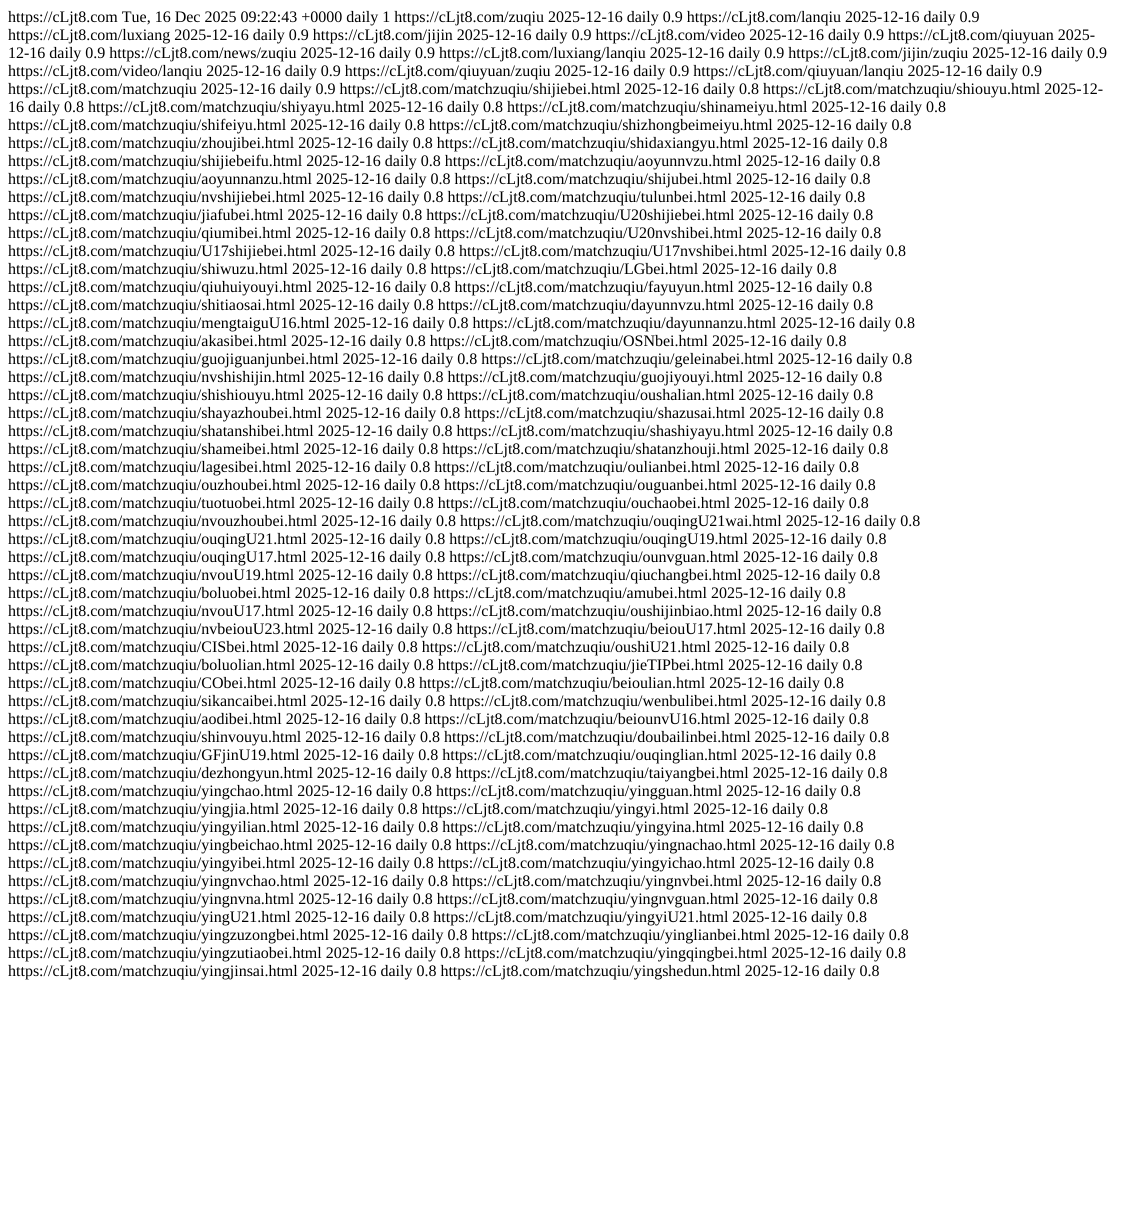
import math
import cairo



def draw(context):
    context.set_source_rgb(1, 1, 1)
    context.paint()
    context.select_font_face("Liberation Serif")
    context.set_font_size(16)
    context.set_source_rgb(0, 0, 0)
    context.move_to(8, 22)
    context.show_text("https://cLjt8.com Tue, 16 Dec 2025 09:22:43 +0000 daily 1 https://cLjt8.com/zuqiu 2025-12-16 daily 0.9 https://cLjt8.com/lanqiu 2025-12-16 daily 0.9")
    context.move_to(8, 40)
    context.show_text("https://cLjt8.com/luxiang 2025-12-16 daily 0.9 https://cLjt8.com/jijin 2025-12-16 daily 0.9 https://cLjt8.com/video 2025-12-16 daily 0.9 https://cLjt8.com/qiuyuan 2025-")
    context.move_to(8, 58)
    context.show_text("12-16 daily 0.9 https://cLjt8.com/news/zuqiu 2025-12-16 daily 0.9 https://cLjt8.com/luxiang/lanqiu 2025-12-16 daily 0.9 https://cLjt8.com/jijin/zuqiu 2025-12-16 daily 0.9")
    context.move_to(8, 76)
    context.show_text("https://cLjt8.com/video/lanqiu 2025-12-16 daily 0.9 https://cLjt8.com/qiuyuan/zuqiu 2025-12-16 daily 0.9 https://cLjt8.com/qiuyuan/lanqiu 2025-12-16 daily 0.9")
    context.move_to(8, 94)
    context.show_text("https://cLjt8.com/matchzuqiu 2025-12-16 daily 0.9 https://cLjt8.com/matchzuqiu/shijiebei.html 2025-12-16 daily 0.8 https://cLjt8.com/matchzuqiu/shiouyu.html 2025-12-")
    context.move_to(8, 112)
    context.show_text("16 daily 0.8 https://cLjt8.com/matchzuqiu/shiyayu.html 2025-12-16 daily 0.8 https://cLjt8.com/matchzuqiu/shinameiyu.html 2025-12-16 daily 0.8")
    context.move_to(8, 130)
    context.show_text("https://cLjt8.com/matchzuqiu/shifeiyu.html 2025-12-16 daily 0.8 https://cLjt8.com/matchzuqiu/shizhongbeimeiyu.html 2025-12-16 daily 0.8")
    context.move_to(8, 148)
    context.show_text("https://cLjt8.com/matchzuqiu/zhoujibei.html 2025-12-16 daily 0.8 https://cLjt8.com/matchzuqiu/shidaxiangyu.html 2025-12-16 daily 0.8")
    context.move_to(8, 166)
    context.show_text("https://cLjt8.com/matchzuqiu/shijiebeifu.html 2025-12-16 daily 0.8 https://cLjt8.com/matchzuqiu/aoyunnvzu.html 2025-12-16 daily 0.8")
    context.move_to(8, 184)
    context.show_text("https://cLjt8.com/matchzuqiu/aoyunnanzu.html 2025-12-16 daily 0.8 https://cLjt8.com/matchzuqiu/shijubei.html 2025-12-16 daily 0.8")
    context.move_to(8, 202)
    context.show_text("https://cLjt8.com/matchzuqiu/nvshijiebei.html 2025-12-16 daily 0.8 https://cLjt8.com/matchzuqiu/tulunbei.html 2025-12-16 daily 0.8")
    context.move_to(8, 220)
    context.show_text("https://cLjt8.com/matchzuqiu/jiafubei.html 2025-12-16 daily 0.8 https://cLjt8.com/matchzuqiu/U20shijiebei.html 2025-12-16 daily 0.8")
    context.move_to(8, 238)
    context.show_text("https://cLjt8.com/matchzuqiu/qiumibei.html 2025-12-16 daily 0.8 https://cLjt8.com/matchzuqiu/U20nvshibei.html 2025-12-16 daily 0.8")
    context.move_to(8, 256)
    context.show_text("https://cLjt8.com/matchzuqiu/U17shijiebei.html 2025-12-16 daily 0.8 https://cLjt8.com/matchzuqiu/U17nvshibei.html 2025-12-16 daily 0.8")
    context.move_to(8, 274)
    context.show_text("https://cLjt8.com/matchzuqiu/shiwuzu.html 2025-12-16 daily 0.8 https://cLjt8.com/matchzuqiu/LGbei.html 2025-12-16 daily 0.8")
    context.move_to(8, 292)
    context.show_text("https://cLjt8.com/matchzuqiu/qiuhuiyouyi.html 2025-12-16 daily 0.8 https://cLjt8.com/matchzuqiu/fayuyun.html 2025-12-16 daily 0.8")
    context.move_to(8, 310)
    context.show_text("https://cLjt8.com/matchzuqiu/shitiaosai.html 2025-12-16 daily 0.8 https://cLjt8.com/matchzuqiu/dayunnvzu.html 2025-12-16 daily 0.8")
    context.move_to(8, 328)
    context.show_text("https://cLjt8.com/matchzuqiu/mengtaiguU16.html 2025-12-16 daily 0.8 https://cLjt8.com/matchzuqiu/dayunnanzu.html 2025-12-16 daily 0.8")
    context.move_to(8, 346)
    context.show_text("https://cLjt8.com/matchzuqiu/akasibei.html 2025-12-16 daily 0.8 https://cLjt8.com/matchzuqiu/OSNbei.html 2025-12-16 daily 0.8")
    context.move_to(8, 364)
    context.show_text("https://cLjt8.com/matchzuqiu/guojiguanjunbei.html 2025-12-16 daily 0.8 https://cLjt8.com/matchzuqiu/geleinabei.html 2025-12-16 daily 0.8")
    context.move_to(8, 382)
    context.show_text("https://cLjt8.com/matchzuqiu/nvshishijin.html 2025-12-16 daily 0.8 https://cLjt8.com/matchzuqiu/guojiyouyi.html 2025-12-16 daily 0.8")
    context.move_to(8, 400)
    context.show_text("https://cLjt8.com/matchzuqiu/shishiouyu.html 2025-12-16 daily 0.8 https://cLjt8.com/matchzuqiu/oushalian.html 2025-12-16 daily 0.8")
    context.move_to(8, 418)
    context.show_text("https://cLjt8.com/matchzuqiu/shayazhoubei.html 2025-12-16 daily 0.8 https://cLjt8.com/matchzuqiu/shazusai.html 2025-12-16 daily 0.8")
    context.move_to(8, 436)
    context.show_text("https://cLjt8.com/matchzuqiu/shatanshibei.html 2025-12-16 daily 0.8 https://cLjt8.com/matchzuqiu/shashiyayu.html 2025-12-16 daily 0.8")
    context.move_to(8, 454)
    context.show_text("https://cLjt8.com/matchzuqiu/shameibei.html 2025-12-16 daily 0.8 https://cLjt8.com/matchzuqiu/shatanzhouji.html 2025-12-16 daily 0.8")
    context.move_to(8, 472)
    context.show_text("https://cLjt8.com/matchzuqiu/lagesibei.html 2025-12-16 daily 0.8 https://cLjt8.com/matchzuqiu/oulianbei.html 2025-12-16 daily 0.8")
    context.move_to(8, 490)
    context.show_text("https://cLjt8.com/matchzuqiu/ouzhoubei.html 2025-12-16 daily 0.8 https://cLjt8.com/matchzuqiu/ouguanbei.html 2025-12-16 daily 0.8")
    context.move_to(8, 508)
    context.show_text("https://cLjt8.com/matchzuqiu/tuotuobei.html 2025-12-16 daily 0.8 https://cLjt8.com/matchzuqiu/ouchaobei.html 2025-12-16 daily 0.8")
    context.move_to(8, 526)
    context.show_text("https://cLjt8.com/matchzuqiu/nvouzhoubei.html 2025-12-16 daily 0.8 https://cLjt8.com/matchzuqiu/ouqingU21wai.html 2025-12-16 daily 0.8")
    context.move_to(8, 544)
    context.show_text("https://cLjt8.com/matchzuqiu/ouqingU21.html 2025-12-16 daily 0.8 https://cLjt8.com/matchzuqiu/ouqingU19.html 2025-12-16 daily 0.8")
    context.move_to(8, 562)
    context.show_text("https://cLjt8.com/matchzuqiu/ouqingU17.html 2025-12-16 daily 0.8 https://cLjt8.com/matchzuqiu/ounvguan.html 2025-12-16 daily 0.8")
    context.move_to(8, 580)
    context.show_text("https://cLjt8.com/matchzuqiu/nvouU19.html 2025-12-16 daily 0.8 https://cLjt8.com/matchzuqiu/qiuchangbei.html 2025-12-16 daily 0.8")
    context.move_to(8, 598)
    context.show_text("https://cLjt8.com/matchzuqiu/boluobei.html 2025-12-16 daily 0.8 https://cLjt8.com/matchzuqiu/amubei.html 2025-12-16 daily 0.8")
    context.move_to(8, 616)
    context.show_text("https://cLjt8.com/matchzuqiu/nvouU17.html 2025-12-16 daily 0.8 https://cLjt8.com/matchzuqiu/oushijinbiao.html 2025-12-16 daily 0.8")
    context.move_to(8, 634)
    context.show_text("https://cLjt8.com/matchzuqiu/nvbeiouU23.html 2025-12-16 daily 0.8 https://cLjt8.com/matchzuqiu/beiouU17.html 2025-12-16 daily 0.8")
    context.move_to(8, 652)
    context.show_text("https://cLjt8.com/matchzuqiu/CISbei.html 2025-12-16 daily 0.8 https://cLjt8.com/matchzuqiu/oushiU21.html 2025-12-16 daily 0.8")
    context.move_to(8, 670)
    context.show_text("https://cLjt8.com/matchzuqiu/boluolian.html 2025-12-16 daily 0.8 https://cLjt8.com/matchzuqiu/jieTIPbei.html 2025-12-16 daily 0.8")
    context.move_to(8, 688)
    context.show_text("https://cLjt8.com/matchzuqiu/CObei.html 2025-12-16 daily 0.8 https://cLjt8.com/matchzuqiu/beioulian.html 2025-12-16 daily 0.8")
    context.move_to(8, 706)
    context.show_text("https://cLjt8.com/matchzuqiu/sikancaibei.html 2025-12-16 daily 0.8 https://cLjt8.com/matchzuqiu/wenbulibei.html 2025-12-16 daily 0.8")
    context.move_to(8, 724)
    context.show_text("https://cLjt8.com/matchzuqiu/aodibei.html 2025-12-16 daily 0.8 https://cLjt8.com/matchzuqiu/beiounvU16.html 2025-12-16 daily 0.8")
    context.move_to(8, 742)
    context.show_text("https://cLjt8.com/matchzuqiu/shinvouyu.html 2025-12-16 daily 0.8 https://cLjt8.com/matchzuqiu/doubailinbei.html 2025-12-16 daily 0.8")
    context.move_to(8, 760)
    context.show_text("https://cLjt8.com/matchzuqiu/GFjinU19.html 2025-12-16 daily 0.8 https://cLjt8.com/matchzuqiu/ouqinglian.html 2025-12-16 daily 0.8")
    context.move_to(8, 778)
    context.show_text("https://cLjt8.com/matchzuqiu/dezhongyun.html 2025-12-16 daily 0.8 https://cLjt8.com/matchzuqiu/taiyangbei.html 2025-12-16 daily 0.8")
    context.move_to(8, 796)
    context.show_text("https://cLjt8.com/matchzuqiu/yingchao.html 2025-12-16 daily 0.8 https://cLjt8.com/matchzuqiu/yingguan.html 2025-12-16 daily 0.8")
    context.move_to(8, 814)
    context.show_text("https://cLjt8.com/matchzuqiu/yingjia.html 2025-12-16 daily 0.8 https://cLjt8.com/matchzuqiu/yingyi.html 2025-12-16 daily 0.8")
    context.move_to(8, 832)
    context.show_text("https://cLjt8.com/matchzuqiu/yingyilian.html 2025-12-16 daily 0.8 https://cLjt8.com/matchzuqiu/yingyina.html 2025-12-16 daily 0.8")
    context.move_to(8, 850)
    context.show_text("https://cLjt8.com/matchzuqiu/yingbeichao.html 2025-12-16 daily 0.8 https://cLjt8.com/matchzuqiu/yingnachao.html 2025-12-16 daily 0.8")
    context.move_to(8, 868)
    context.show_text("https://cLjt8.com/matchzuqiu/yingyibei.html 2025-12-16 daily 0.8 https://cLjt8.com/matchzuqiu/yingyichao.html 2025-12-16 daily 0.8")
    context.move_to(8, 886)
    context.show_text("https://cLjt8.com/matchzuqiu/yingnvchao.html 2025-12-16 daily 0.8 https://cLjt8.com/matchzuqiu/yingnvbei.html 2025-12-16 daily 0.8")
    context.move_to(8, 904)
    context.show_text("https://cLjt8.com/matchzuqiu/yingnvna.html 2025-12-16 daily 0.8 https://cLjt8.com/matchzuqiu/yingnvguan.html 2025-12-16 daily 0.8")
    context.move_to(8, 922)
    context.show_text("https://cLjt8.com/matchzuqiu/yingU21.html 2025-12-16 daily 0.8 https://cLjt8.com/matchzuqiu/yingyiU21.html 2025-12-16 daily 0.8")
    context.move_to(8, 940)
    context.show_text("https://cLjt8.com/matchzuqiu/yingzuzongbei.html 2025-12-16 daily 0.8 https://cLjt8.com/matchzuqiu/yinglianbei.html 2025-12-16 daily 0.8")
    context.move_to(8, 958)
    context.show_text("https://cLjt8.com/matchzuqiu/yingzutiaobei.html 2025-12-16 daily 0.8 https://cLjt8.com/matchzuqiu/yingqingbei.html 2025-12-16 daily 0.8")
    context.move_to(8, 976)
    context.show_text("https://cLjt8.com/matchzuqiu/yingjinsai.html 2025-12-16 daily 0.8 https://cLjt8.com/matchzuqiu/yingshedun.html 2025-12-16 daily 0.8")


surface = cairo.ImageSurface(cairo.Format.RGB24, 1123, 1226)
context = cairo.Context(surface)
options = cairo.FontOptions()
options.set_hint_metrics(cairo.HintMetrics.OFF)
options.set_hint_style(cairo.HintStyle.NONE)
context.set_font_options(options)
context.set_miter_limit(4)
draw(context)
surface.write_to_png("out.png")
